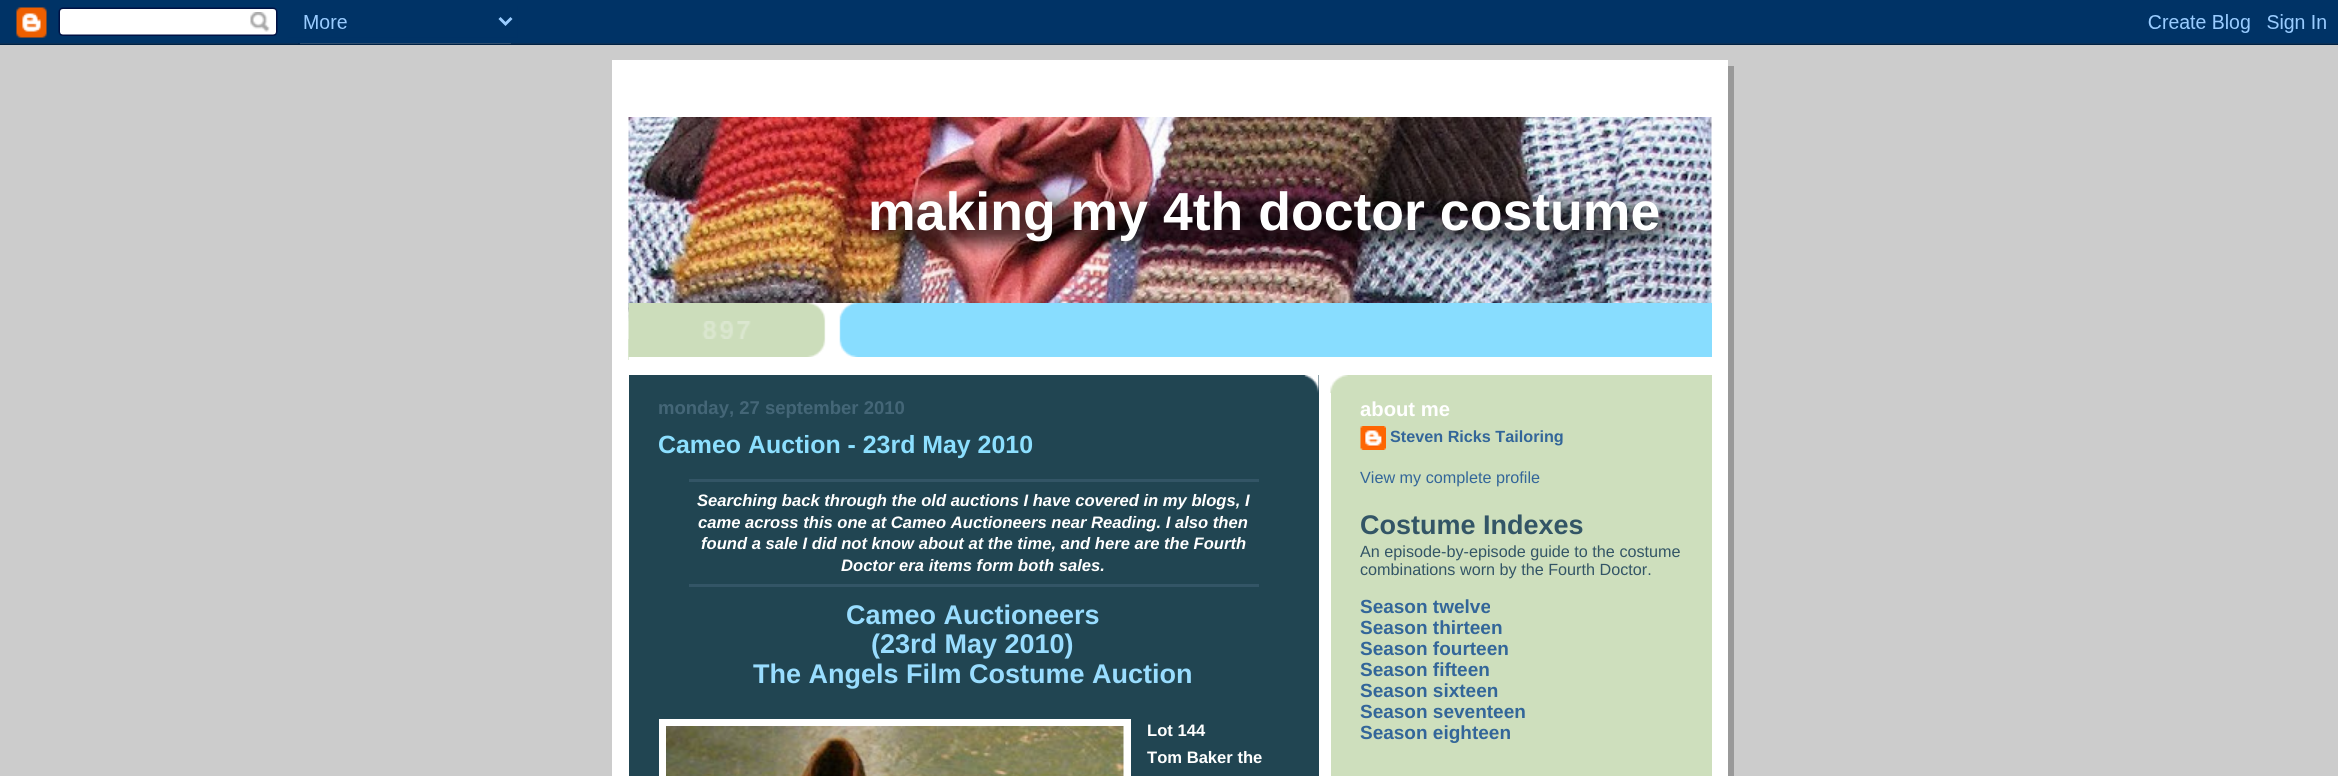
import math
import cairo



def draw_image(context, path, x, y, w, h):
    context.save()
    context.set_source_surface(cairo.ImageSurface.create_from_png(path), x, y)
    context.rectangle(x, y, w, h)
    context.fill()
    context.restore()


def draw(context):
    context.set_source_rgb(204 / 255, 204 / 255, 204 / 255)
    context.paint()
    draw_image(context, "images/1.png", 0, 0, 2338, 45)
    context.set_source_rgb(153 / 255, 153 / 255, 153 / 255)
    context.rectangle(1728, 66, 6, 710)
    context.fill()
    context.set_source_rgb(1, 1, 1)
    context.rectangle(612, 60, 1116, 716)
    context.fill()
    draw_image(context, "images/2.png", 628, 117, 1084, 204)
    context.set_source_rgb(136 / 255, 221 / 255, 1)
    context.rectangle(839, 303, 873, 54)
    context.fill()
    draw_image(context, "images/3.png", 628, 303, 230, 57)
    context.set_source_rgb(1, 1, 1)
    context.rectangle(629, 357, 197, 3)
    context.fill()
    draw_image(context, "images/4.png", 628, 339, 230, 18)
    draw_image(context, "images/5.png", 702, 321, 49, 18)
    context.set_source_rgb(33 / 255, 69 / 255, 82 / 255)
    context.rectangle(629, 375, 690, 401)
    context.fill()
    draw_image(context, "images/6.png", 1304, 375, 15, 18)
    context.set_source_rgb(51 / 255, 85 / 255, 102 / 255)
    context.rectangle(689, 479, 570, 3)
    context.fill()
    context.rectangle(689, 584, 570, 3)
    context.fill()
    context.rectangle(663, 723, 464, 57)
    context.set_source_rgb(1, 1, 1)
    context.set_line_width(8)
    context.stroke()
    draw_image(context, "images/7.png", 666, 726, 458, 50)
    context.set_source_rgb(206 / 255, 223 / 255, 189 / 255)
    context.rectangle(1331, 375, 381, 401)
    context.fill()
    draw_image(context, "images/8.png", 1330, 375, 18, 18)
    draw_image(context, "images/9.png", 1360, 426, 26, 24)
    context.select_font_face("Liberation Sans", cairo.FontSlant.NORMAL, cairo.FontWeight.BOLD)
    context.set_font_size(53.6)
    context.set_source_rgb(1, 1, 1)
    context.move_to(868, 230)
    context.show_text("making my 4th doctor costume")
    context.set_font_size(18.5)
    context.set_source_rgb(68 / 255, 102 / 255, 119 / 255)
    context.move_to(658, 414)
    context.show_text("monday, 27 september 2010")
    context.set_font_size(24.9)
    context.set_source_rgb(140 / 255, 223 / 255, 1)
    context.move_to(658, 453)
    context.show_text("Cameo Auction - 23rd May 2010")
    context.select_font_face("Liberation Sans", cairo.FontSlant.ITALIC, cairo.FontWeight.BOLD)
    context.set_font_size(16.6)
    context.set_source_rgb(1, 1, 1)
    context.move_to(697, 506)
    context.show_text("Searching back through the old auctions I have covered in my blogs, I")
    context.move_to(698, 528)
    context.show_text("came across this one at Cameo Auctioneers near Reading. I also then")
    context.move_to(701, 549)
    context.show_text("found a sale I did not know about at the time, and here are the Fourth")
    context.move_to(841, 571)
    context.show_text("Doctor era items form both sales.")
    context.select_font_face("Liberation Sans", cairo.FontSlant.NORMAL, cairo.FontWeight.BOLD)
    context.set_font_size(27)
    context.set_source_rgb(153 / 255, 221 / 255, 1)
    context.move_to(846, 624)
    context.show_text("Cameo Auctioneers")
    context.move_to(871, 653)
    context.show_text("(23rd May 2010)")
    context.move_to(753, 683)
    context.show_text("The Angels Film Costume Auction")
    context.set_font_size(16.6)
    context.set_source_rgb(1, 1, 1)
    context.move_to(1147, 736)
    context.show_text("Lot 144")
    context.move_to(1147, 763)
    context.show_text("Tom Baker the")
    context.set_font_size(20.25)
    context.move_to(1360, 416)
    context.show_text("about me")
    context.set_font_size(16.2)
    context.set_source_rgb(51 / 255, 102 / 255, 153 / 255)
    context.move_to(1390, 442)
    context.show_text("Steven Ricks Tailoring")
    context.select_font_face("Liberation Sans")
    context.move_to(1360, 483)
    context.show_text("View my complete profile")
    context.select_font_face("Liberation Sans", cairo.FontSlant.NORMAL, cairo.FontWeight.BOLD)
    context.set_font_size(27)
    context.set_source_rgb(51 / 255, 85 / 255, 102 / 255)
    context.move_to(1360, 534)
    context.show_text("Costume Indexes")
    context.select_font_face("Liberation Sans")
    context.set_font_size(16.2)
    context.move_to(1360, 557)
    context.show_text("An episode-by-episode guide to the costume")
    context.move_to(1360, 575)
    context.show_text("combinations worn by the Fourth Doctor.")
    context.select_font_face("Liberation Sans", cairo.FontSlant.NORMAL, cairo.FontWeight.BOLD)
    context.set_font_size(19)
    context.set_source_rgb(51 / 255, 102 / 255, 153 / 255)
    context.move_to(1360, 613)
    context.show_text("Season twelve")
    context.move_to(1360, 634)
    context.show_text("Season thirteen")
    context.move_to(1360, 655)
    context.show_text("Season fourteen")
    context.move_to(1360, 676)
    context.show_text("Season fifteen")
    context.move_to(1360, 697)
    context.show_text("Season sixteen")
    context.move_to(1360, 718)
    context.show_text("Season seventeen")
    context.move_to(1360, 739)
    context.show_text("Season eighteen")


surface = cairo.ImageSurface(cairo.Format.RGB24, 2338, 776)
context = cairo.Context(surface)
options = cairo.FontOptions()
options.set_hint_metrics(cairo.HintMetrics.OFF)
options.set_hint_style(cairo.HintStyle.NONE)
context.set_font_options(options)
context.set_miter_limit(4)
draw(context)
surface.write_to_png("out.png")
